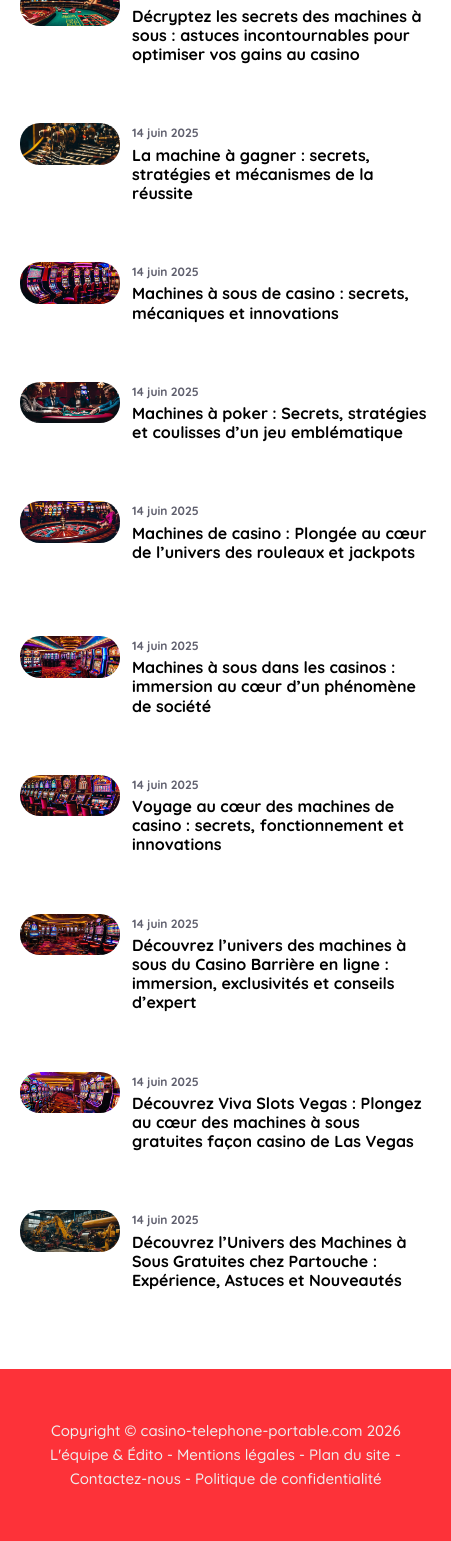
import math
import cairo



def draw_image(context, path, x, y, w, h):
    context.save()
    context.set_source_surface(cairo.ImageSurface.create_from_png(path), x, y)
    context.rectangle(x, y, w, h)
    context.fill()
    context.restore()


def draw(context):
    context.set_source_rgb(1, 1, 1)
    context.paint()
    draw_image(context, "images/1.png", 20, 0, 100, 26)
    draw_image(context, "images/2.png", 20, 123, 100, 42)
    draw_image(context, "images/3.png", 20, 262, 100, 42)
    draw_image(context, "images/4.png", 20, 382, 100, 41)
    draw_image(context, "images/5.png", 20, 501, 100, 42)
    draw_image(context, "images/6.png", 20, 636, 100, 42)
    draw_image(context, "images/7.png", 20, 775, 100, 41)
    draw_image(context, "images/8.png", 20, 914, 100, 41)
    draw_image(context, "images/9.png", 20, 1072, 100, 41)
    draw_image(context, "images/10.png", 20, 1210, 100, 42)
    context.set_source_rgb(253 / 255, 50 / 255, 57 / 255)
    context.rectangle(0, 1369, 451, 172)
    context.fill()
    context.select_font_face("Quicksand", cairo.FontSlant.NORMAL, cairo.FontWeight.BOLD)
    context.set_font_size(16)
    context.set_source_rgb(0, 0, 0)
    context.move_to(132, 22)
    context.show_text("Décryptez les secrets des machines à")
    context.move_to(132, 41)
    context.show_text("sous : astuces incontournables pour")
    context.move_to(132, 60)
    context.show_text("optimiser vos gains au casino")
    context.set_font_size(12)
    context.set_source_rgb(96 / 255, 96 / 255, 110 / 255)
    context.move_to(132, 137)
    context.show_text("14 juin 2025")
    context.set_font_size(16)
    context.set_source_rgb(0, 0, 0)
    context.move_to(132, 161)
    context.show_text("La machine à gagner : secrets,")
    context.move_to(132, 180)
    context.show_text("stratégies et mécanismes de la")
    context.move_to(132, 199)
    context.show_text("réussite")
    context.set_font_size(12)
    context.set_source_rgb(96 / 255, 96 / 255, 110 / 255)
    context.move_to(132, 276)
    context.show_text("14 juin 2025")
    context.set_font_size(16)
    context.set_source_rgb(0, 0, 0)
    context.move_to(132, 299)
    context.show_text("Machines à sous de casino : secrets,")
    context.move_to(132, 319)
    context.show_text("mécaniques et innovations")
    context.set_font_size(12)
    context.set_source_rgb(96 / 255, 96 / 255, 110 / 255)
    context.move_to(132, 396)
    context.show_text("14 juin 2025")
    context.set_font_size(16)
    context.set_source_rgb(0, 0, 0)
    context.move_to(132, 419)
    context.show_text("Machines à poker : Secrets, stratégies")
    context.move_to(132, 438)
    context.show_text("et coulisses d’un jeu emblématique")
    context.set_font_size(12)
    context.set_source_rgb(96 / 255, 96 / 255, 110 / 255)
    context.move_to(132, 515)
    context.show_text("14 juin 2025")
    context.set_font_size(16)
    context.set_source_rgb(0, 0, 0)
    context.move_to(132, 539)
    context.show_text("Machines de casino : Plongée au cœur")
    context.move_to(132, 558)
    context.show_text("de l’univers des rouleaux et jackpots")
    context.set_font_size(12)
    context.set_source_rgb(96 / 255, 96 / 255, 110 / 255)
    context.move_to(132, 650)
    context.show_text("14 juin 2025")
    context.set_font_size(16)
    context.set_source_rgb(0, 0, 0)
    context.move_to(132, 673)
    context.show_text("Machines à sous dans les casinos :")
    context.move_to(132, 692)
    context.show_text("immersion au cœur d’un phénomène")
    context.move_to(132, 712)
    context.show_text("de société")
    context.set_font_size(12)
    context.set_source_rgb(96 / 255, 96 / 255, 110 / 255)
    context.move_to(132, 789)
    context.show_text("14 juin 2025")
    context.set_font_size(16)
    context.set_source_rgb(0, 0, 0)
    context.move_to(132, 812)
    context.show_text("Voyage au cœur des machines de")
    context.move_to(132, 831)
    context.show_text("casino : secrets, fonctionnement et")
    context.move_to(132, 850)
    context.show_text("innovations")
    context.set_font_size(12)
    context.set_source_rgb(96 / 255, 96 / 255, 110 / 255)
    context.move_to(132, 928)
    context.show_text("14 juin 2025")
    context.set_font_size(16)
    context.set_source_rgb(0, 0, 0)
    context.move_to(132, 951)
    context.show_text("Découvrez l’univers des machines à")
    context.move_to(132, 970)
    context.show_text("sous du Casino Barrière en ligne :")
    context.move_to(132, 989)
    context.show_text("immersion, exclusivités et conseils")
    context.move_to(132, 1008)
    context.show_text("d’expert")
    context.set_font_size(12)
    context.set_source_rgb(96 / 255, 96 / 255, 110 / 255)
    context.move_to(132, 1086)
    context.show_text("14 juin 2025")
    context.set_font_size(16)
    context.set_source_rgb(0, 0, 0)
    context.move_to(132, 1109)
    context.show_text("Découvrez Viva Slots Vegas : Plongez")
    context.move_to(132, 1128)
    context.show_text("au cœur des machines à sous")
    context.move_to(132, 1147)
    context.show_text("gratuites façon casino de Las Vegas")
    context.set_font_size(12)
    context.set_source_rgb(96 / 255, 96 / 255, 110 / 255)
    context.move_to(132, 1224)
    context.show_text("14 juin 2025")
    context.set_font_size(16)
    context.set_source_rgb(0, 0, 0)
    context.move_to(132, 1248)
    context.show_text("Découvrez l’Univers des Machines à")
    context.move_to(132, 1267)
    context.show_text("Sous Gratuites chez Partouche :")
    context.move_to(132, 1286)
    context.show_text("Expérience, Astuces et Nouveautés")
    context.select_font_face("Quicksand Medium")
    context.set_font_size(15)
    context.set_source_rgb(238 / 255, 238 / 255, 238 / 255)
    context.move_to(51, 1436)
    context.show_text("Copyright © casino-telephone-portable.com 2026")
    context.move_to(50, 1460)
    context.show_text("L'équipe & Édito")
    context.move_to(167, 1460)
    context.show_text("-")
    context.move_to(177, 1460)
    context.show_text("Mentions légales")
    context.move_to(299, 1460)
    context.show_text("-")
    context.move_to(309, 1460)
    context.show_text("Plan du site")
    context.move_to(395, 1460)
    context.show_text("-")
    context.move_to(70, 1484)
    context.show_text("Contactez-nous")
    context.move_to(185, 1484)
    context.show_text("-")
    context.move_to(195, 1484)
    context.show_text("Politique de confidentialité")


surface = cairo.ImageSurface(cairo.Format.RGB24, 451, 1541)
context = cairo.Context(surface)
options = cairo.FontOptions()
options.set_hint_metrics(cairo.HintMetrics.OFF)
options.set_hint_style(cairo.HintStyle.NONE)
context.set_font_options(options)
context.set_miter_limit(4)
draw(context)
surface.write_to_png("out.png")
